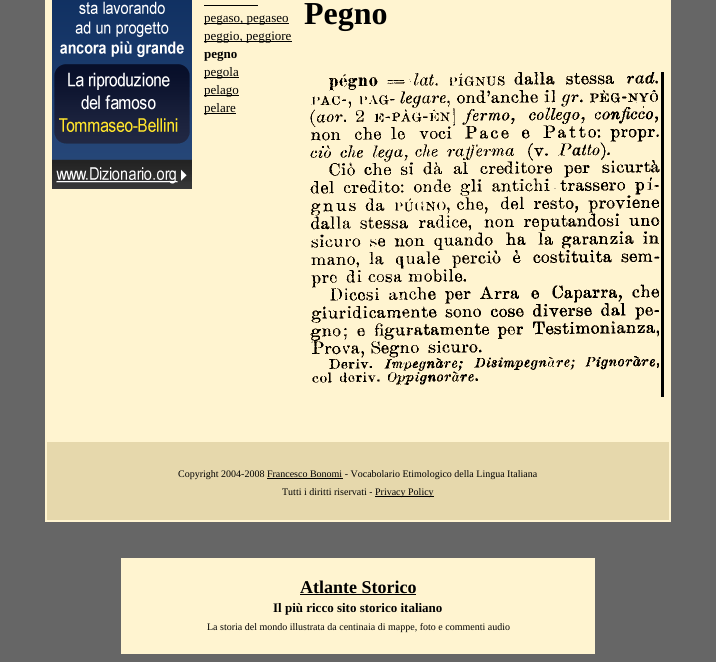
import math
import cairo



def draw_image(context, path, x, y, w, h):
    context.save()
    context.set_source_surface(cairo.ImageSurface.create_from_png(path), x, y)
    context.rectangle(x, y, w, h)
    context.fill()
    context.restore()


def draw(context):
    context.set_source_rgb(102 / 255, 102 / 255, 102 / 255)
    context.paint()
    context.set_source_rgb(1, 244 / 255, 208 / 255)
    context.rectangle(45, 0, 626, 522)
    context.fill()
    draw_image(context, "images/1.png", 52, 0, 140, 189)
    context.set_source_rgb(0, 0, 0)
    context.rectangle(204, 5, 54, 1)
    context.fill()
    context.rectangle(204, 23, 85, 1)
    context.fill()
    context.rectangle(204, 41, 88, 1)
    context.fill()
    context.rectangle(204, 77, 35, 1)
    context.fill()
    context.rectangle(204, 95, 35, 1)
    context.fill()
    context.rectangle(204, 113, 32, 1)
    context.fill()
    draw_image(context, "images/2.png", 310, 72, 354, 325)
    context.set_source_rgb(230 / 255, 216 / 255, 172 / 255)
    context.rectangle(47, 442, 622, 78)
    context.fill()
    context.set_source_rgb(0, 0, 0)
    context.rectangle(267, 478, 76, 1)
    context.fill()
    context.rectangle(375, 496, 59, 1)
    context.fill()
    context.set_source_rgb(1, 244 / 255, 208 / 255)
    context.rectangle(121, 558, 474, 96)
    context.fill()
    context.set_source_rgb(0, 0, 0)
    context.rectangle(300, 594, 116, 1)
    context.fill()
    context.select_font_face("Liberation Serif")
    context.set_font_size(13)
    context.move_to(204, 22)
    context.show_text("pegaso, pegaseo")
    context.move_to(204, 40)
    context.show_text("peggio, peggiore")
    context.select_font_face("Liberation Serif", cairo.FontSlant.NORMAL, cairo.FontWeight.BOLD)
    context.move_to(204, 58)
    context.show_text("pegno")
    context.select_font_face("Liberation Serif")
    context.move_to(204, 76)
    context.show_text("pegola")
    context.move_to(204, 94)
    context.show_text("pelago")
    context.move_to(204, 112)
    context.show_text("pelare")
    context.select_font_face("Liberation Serif", cairo.FontSlant.NORMAL, cairo.FontWeight.BOLD)
    context.set_font_size(32)
    context.move_to(304, 24)
    context.show_text("Pegno")
    context.select_font_face("Liberation Serif")
    context.set_font_size(10)
    context.move_to(178, 477)
    context.show_text("Copyright 2004-2008 Francesco Bonomi - Vocabolario Etimologico della Lingua Italiana")
    context.move_to(282, 495)
    context.show_text("Tutti i diritti riservati -")
    context.move_to(375, 495)
    context.show_text("Privacy Policy")
    context.select_font_face("Liberation Serif", cairo.FontSlant.NORMAL, cairo.FontWeight.BOLD)
    context.set_font_size(18)
    context.move_to(300, 593)
    context.show_text("Atlante Storico")
    context.set_font_size(13)
    context.move_to(273, 612)
    context.show_text("Il più ricco sito storico italiano")
    context.select_font_face("Liberation Serif")
    context.set_font_size(10)
    context.move_to(207, 630)
    context.show_text("La storia del mondo illustrata da centinaia di mappe, foto e commenti audio")


surface = cairo.ImageSurface(cairo.Format.RGB24, 716, 662)
context = cairo.Context(surface)
options = cairo.FontOptions()
options.set_hint_metrics(cairo.HintMetrics.OFF)
options.set_hint_style(cairo.HintStyle.NONE)
context.set_font_options(options)
context.set_miter_limit(4)
draw(context)
surface.write_to_png("out.png")
